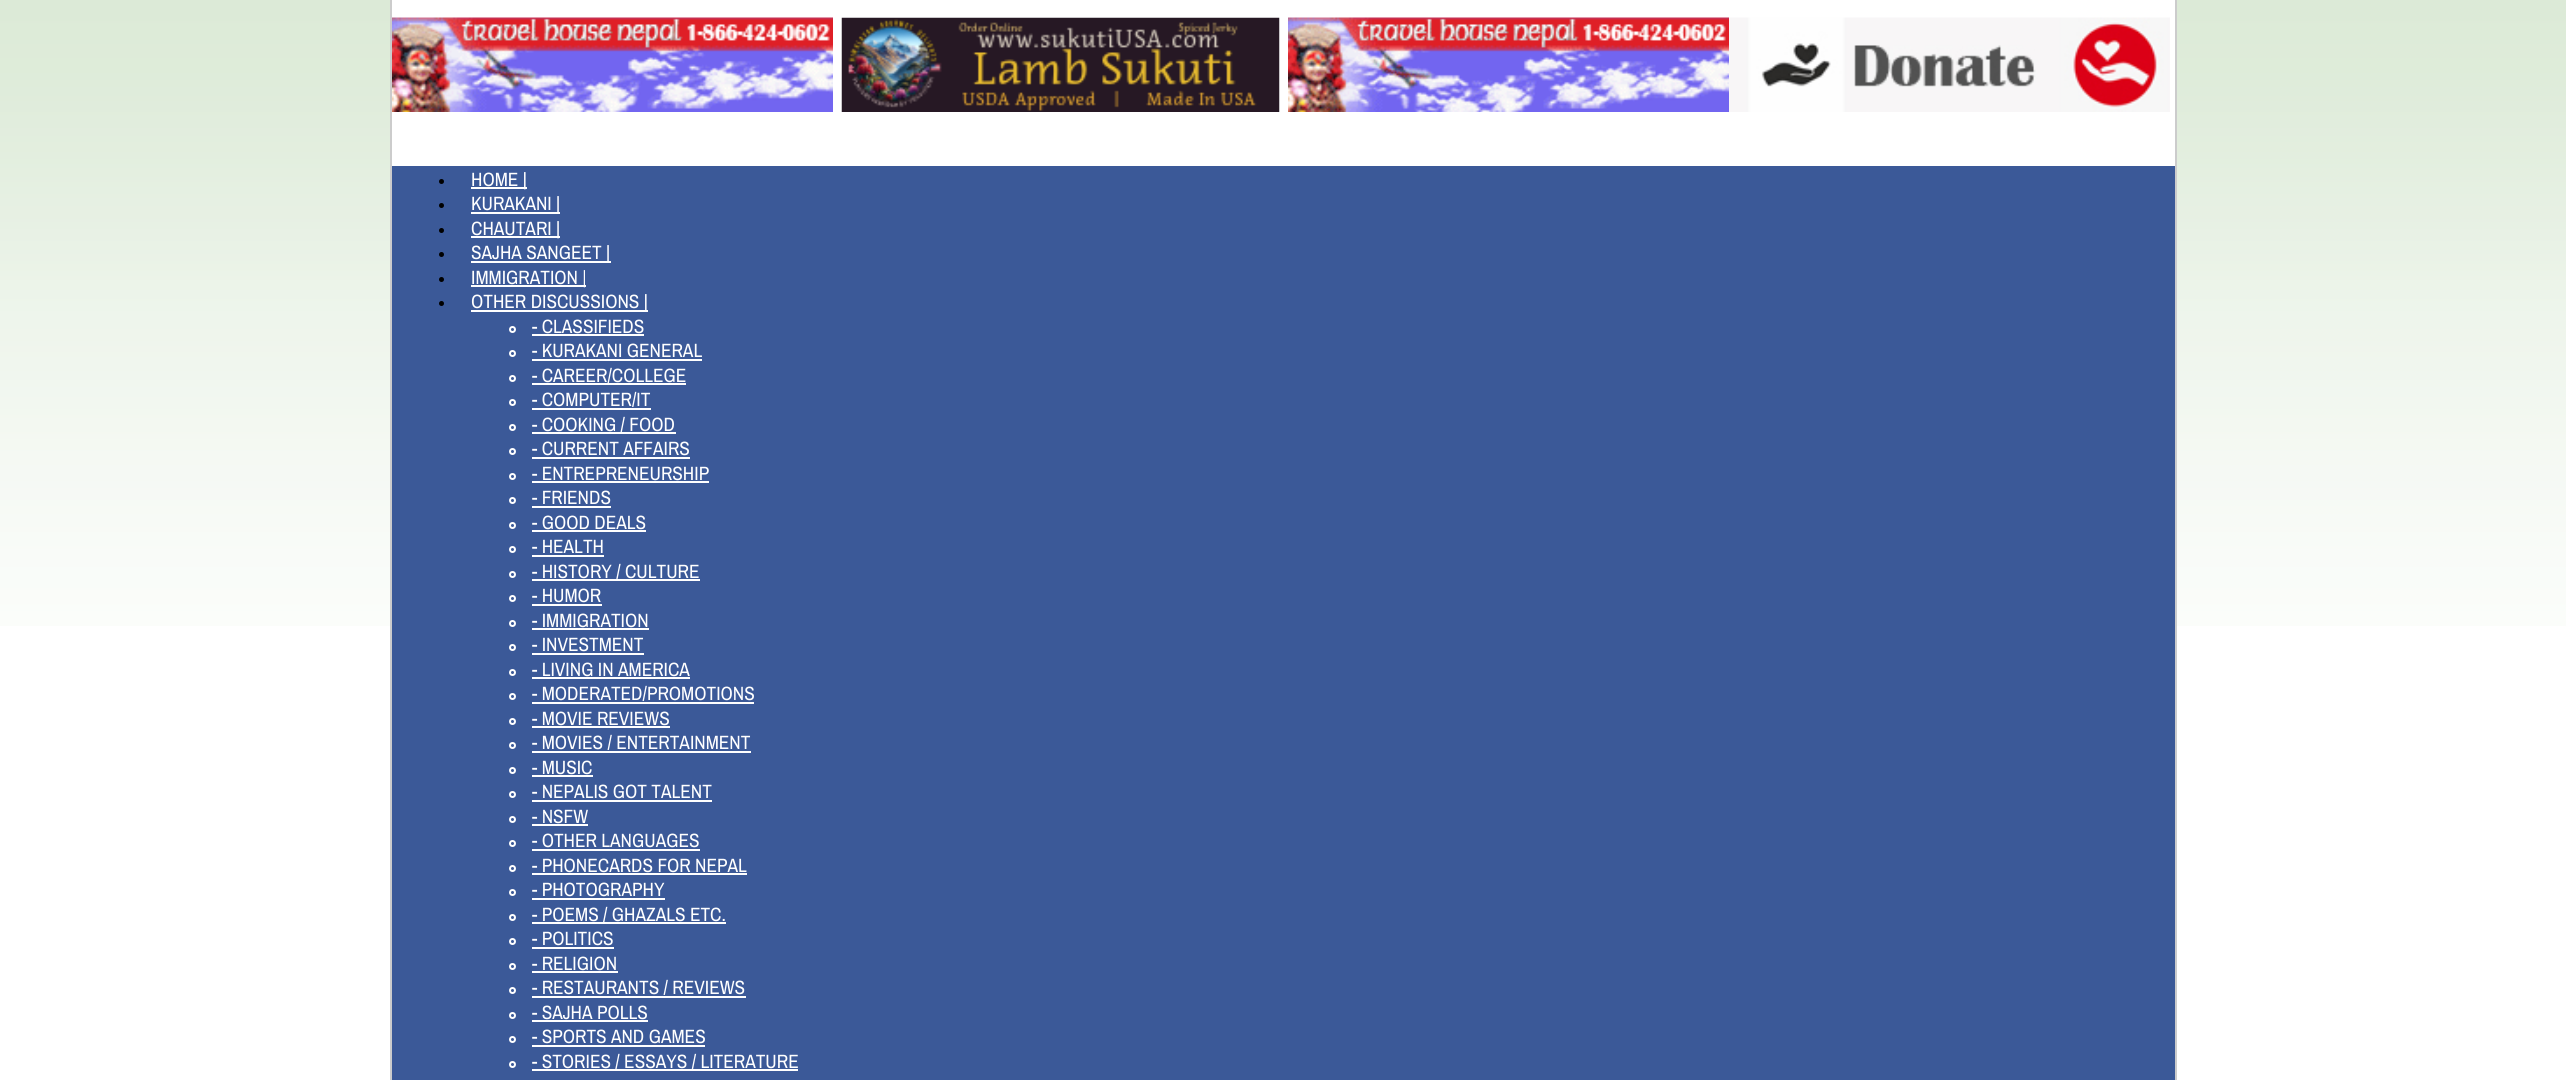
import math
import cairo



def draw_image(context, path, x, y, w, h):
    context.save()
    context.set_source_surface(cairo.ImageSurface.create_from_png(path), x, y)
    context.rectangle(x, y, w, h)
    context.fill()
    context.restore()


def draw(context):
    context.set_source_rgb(1, 1, 1)
    context.paint()
    draw_image(context, "images/1.png", 0, 0, 2566, 626)
    context.set_source_rgb(1, 1, 1)
    context.rectangle(392, 0, 1783, 166)
    context.fill()
    context.set_source_rgb(204 / 255, 204 / 255, 204 / 255)
    context.rectangle(2175, 0, 2, 1080)
    context.fill()
    context.rectangle(390, 0, 2, 1080)
    context.fill()
    draw_image(context, "images/2.png", 392, 17, 441, 95)
    draw_image(context, "images/3.png", 841, 17, 439, 95)
    draw_image(context, "images/4.png", 1288, 17, 441, 95)
    draw_image(context, "images/5.png", 1729, 17, 441, 95)
    context.set_source_rgb(59 / 255, 89 / 255, 152 / 255)
    context.rectangle(392, 166, 1783, 914)
    context.fill()
    context.set_source_rgb(0, 0, 0)
    context.arc(441.5, 181.5, 2.5, 0, 2 * math.pi)
    context.fill()
    context.set_source_rgb(1, 1, 1)
    context.rectangle(471, 187, 56, 2)
    context.fill()
    context.set_source_rgb(0, 0, 0)
    context.arc(441.5, 205.5, 2.5, 0, 2 * math.pi)
    context.fill()
    context.set_source_rgb(1, 1, 1)
    context.rectangle(471, 212, 89, 2)
    context.fill()
    context.set_source_rgb(0, 0, 0)
    context.arc(441.5, 230.5, 2.5, 0, 2 * math.pi)
    context.fill()
    context.set_source_rgb(1, 1, 1)
    context.rectangle(471, 236, 89, 2)
    context.fill()
    context.set_source_rgb(0, 0, 0)
    context.arc(441.5, 254.5, 2.5, 0, 2 * math.pi)
    context.fill()
    context.set_source_rgb(1, 1, 1)
    context.rectangle(471, 261, 140, 2)
    context.fill()
    context.set_source_rgb(0, 0, 0)
    context.arc(441.5, 279.5, 2.5, 0, 2 * math.pi)
    context.fill()
    context.set_source_rgb(1, 1, 1)
    context.rectangle(471, 285, 115, 2)
    context.fill()
    context.set_source_rgb(0, 0, 0)
    context.arc(441.5, 303.5, 2.5, 0, 2 * math.pi)
    context.fill()
    context.set_source_rgb(1, 1, 1)
    context.rectangle(471, 310, 177, 2)
    context.fill()
    context.arc(512.5, 329.5, 2.5, 0, 2 * math.pi)
    context.stroke()
    context.rectangle(532, 334, 112, 2)
    context.fill()
    context.arc(512.5, 353.5, 2.5, 0, 2 * math.pi)
    context.stroke()
    context.rectangle(532, 359, 170, 2)
    context.fill()
    context.arc(512.5, 378.5, 2.5, 0, 2 * math.pi)
    context.stroke()
    context.rectangle(532, 383, 154, 2)
    context.fill()
    context.arc(512.5, 402.5, 2.5, 0, 2 * math.pi)
    context.stroke()
    context.rectangle(532, 408, 119, 2)
    context.fill()
    context.arc(512.5, 427.5, 2.5, 0, 2 * math.pi)
    context.stroke()
    context.rectangle(532, 432, 144, 2)
    context.fill()
    context.arc(512.5, 451.5, 2.5, 0, 2 * math.pi)
    context.stroke()
    context.rectangle(532, 457, 158, 2)
    context.fill()
    context.arc(512.5, 476.5, 2.5, 0, 2 * math.pi)
    context.stroke()
    context.rectangle(532, 481, 177, 2)
    context.fill()
    context.arc(512.5, 500.5, 2.5, 0, 2 * math.pi)
    context.stroke()
    context.rectangle(532, 506, 79, 2)
    context.fill()
    context.arc(512.5, 525.5, 2.5, 0, 2 * math.pi)
    context.stroke()
    context.rectangle(532, 530, 114, 2)
    context.fill()
    context.arc(512.5, 549.5, 2.5, 0, 2 * math.pi)
    context.stroke()
    context.rectangle(532, 555, 72, 2)
    context.fill()
    context.arc(512.5, 574.5, 2.5, 0, 2 * math.pi)
    context.stroke()
    context.rectangle(532, 579, 168, 2)
    context.fill()
    context.arc(512.5, 598.5, 2.5, 0, 2 * math.pi)
    context.stroke()
    context.rectangle(532, 604, 70, 2)
    context.fill()
    context.arc(512.5, 623.5, 2.5, 0, 2 * math.pi)
    context.stroke()
    context.rectangle(532, 628, 117, 2)
    context.fill()
    context.arc(512.5, 647.5, 2.5, 0, 2 * math.pi)
    context.stroke()
    context.rectangle(532, 653, 112, 2)
    context.fill()
    context.arc(512.5, 672.5, 2.5, 0, 2 * math.pi)
    context.stroke()
    context.rectangle(532, 677, 158, 2)
    context.fill()
    context.arc(512.5, 696.5, 2.5, 0, 2 * math.pi)
    context.stroke()
    context.rectangle(532, 702, 222, 2)
    context.fill()
    context.arc(512.5, 721.5, 2.5, 0, 2 * math.pi)
    context.stroke()
    context.rectangle(532, 726, 138, 2)
    context.fill()
    context.arc(512.5, 745.5, 2.5, 0, 2 * math.pi)
    context.stroke()
    context.rectangle(532, 751, 219, 2)
    context.fill()
    context.arc(512.5, 770.5, 2.5, 0, 2 * math.pi)
    context.stroke()
    context.rectangle(532, 775, 61, 2)
    context.fill()
    context.arc(512.5, 794.5, 2.5, 0, 2 * math.pi)
    context.stroke()
    context.rectangle(532, 800, 180, 2)
    context.fill()
    context.arc(512.5, 819.5, 2.5, 0, 2 * math.pi)
    context.stroke()
    context.rectangle(532, 824, 56, 2)
    context.fill()
    context.arc(512.5, 843.5, 2.5, 0, 2 * math.pi)
    context.stroke()
    context.rectangle(532, 849, 168, 2)
    context.fill()
    context.arc(512.5, 868.5, 2.5, 0, 2 * math.pi)
    context.stroke()
    context.rectangle(532, 873, 215, 2)
    context.fill()
    context.arc(512.5, 892.5, 2.5, 0, 2 * math.pi)
    context.stroke()
    context.rectangle(532, 898, 133, 2)
    context.fill()
    context.arc(512.5, 917.5, 2.5, 0, 2 * math.pi)
    context.stroke()
    context.rectangle(532, 922, 194, 2)
    context.fill()
    context.arc(512.5, 941.5, 2.5, 0, 2 * math.pi)
    context.stroke()
    context.rectangle(532, 947, 82, 2)
    context.fill()
    context.arc(512.5, 966.5, 2.5, 0, 2 * math.pi)
    context.stroke()
    context.rectangle(532, 971, 86, 2)
    context.fill()
    context.arc(512.5, 990.5, 2.5, 0, 2 * math.pi)
    context.stroke()
    context.rectangle(532, 996, 214, 2)
    context.fill()
    context.arc(512.5, 1015.5, 2.5, 0, 2 * math.pi)
    context.stroke()
    context.rectangle(532, 1020, 116, 2)
    context.fill()
    context.arc(512.5, 1039.5, 2.5, 0, 2 * math.pi)
    context.stroke()
    context.rectangle(532, 1045, 173, 2)
    context.fill()
    context.arc(512.5, 1064.5, 2.5, 0, 2 * math.pi)
    context.stroke()
    context.rectangle(532, 1069, 266, 2)
    context.fill()
    context.select_font_face("Archivo Narrow")
    context.set_font_size(19.25)
    context.move_to(471, 186)
    context.show_text("HOME |")
    context.move_to(471, 210)
    context.show_text("KURAKANI |")
    context.move_to(471, 235)
    context.show_text("CHAUTARI |")
    context.move_to(471, 259)
    context.show_text("SAJHA SANGEET |")
    context.move_to(471, 284)
    context.show_text("IMMIGRATION |")
    context.move_to(471, 308)
    context.show_text("OTHER DISCUSSIONS |")
    context.move_to(532, 333)
    context.show_text("- CLASSIFIEDS")
    context.move_to(532, 357)
    context.show_text("- KURAKANI GENERAL")
    context.move_to(532, 382)
    context.show_text("- CAREER/COLLEGE")
    context.move_to(532, 406)
    context.show_text("- COMPUTER/IT")
    context.move_to(532, 431)
    context.show_text("- COOKING / FOOD")
    context.move_to(532, 455)
    context.show_text("- CURRENT AFFAIRS")
    context.move_to(532, 480)
    context.show_text("- ENTREPRENEURSHIP")
    context.move_to(532, 504)
    context.show_text("- FRIENDS")
    context.move_to(532, 529)
    context.show_text("- GOOD DEALS")
    context.move_to(532, 553)
    context.show_text("- HEALTH")
    context.move_to(532, 578)
    context.show_text("- HISTORY / CULTURE")
    context.move_to(532, 602)
    context.show_text("- HUMOR")
    context.move_to(532, 627)
    context.show_text("- IMMIGRATION")
    context.move_to(532, 651)
    context.show_text("- INVESTMENT")
    context.move_to(532, 676)
    context.show_text("- LIVING IN AMERICA")
    context.move_to(532, 700)
    context.show_text("- MODERATED/PROMOTIONS")
    context.move_to(532, 725)
    context.show_text("- MOVIE REVIEWS")
    context.move_to(532, 749)
    context.show_text("- MOVIES / ENTERTAINMENT")
    context.move_to(532, 774)
    context.show_text("- MUSIC")
    context.move_to(532, 798)
    context.show_text("- NEPALIS GOT TALENT")
    context.move_to(532, 823)
    context.show_text("- NSFW")
    context.move_to(532, 847)
    context.show_text("- OTHER LANGUAGES")
    context.move_to(532, 872)
    context.show_text("- PHONECARDS FOR NEPAL")
    context.move_to(532, 896)
    context.show_text("- PHOTOGRAPHY")
    context.move_to(532, 921)
    context.show_text("- POEMS / GHAZALS ETC.")
    context.move_to(532, 945)
    context.show_text("- POLITICS")
    context.move_to(532, 970)
    context.show_text("- RELIGION")
    context.move_to(532, 994)
    context.show_text("- RESTAURANTS / REVIEWS")
    context.move_to(532, 1019)
    context.show_text("- SAJHA POLLS")
    context.move_to(532, 1043)
    context.show_text("- SPORTS AND GAMES")
    context.move_to(532, 1068)
    context.show_text("- STORIES / ESSAYS / LITERATURE")


surface = cairo.ImageSurface(cairo.Format.RGB24, 2566, 1080)
context = cairo.Context(surface)
options = cairo.FontOptions()
options.set_hint_metrics(cairo.HintMetrics.OFF)
options.set_hint_style(cairo.HintStyle.NONE)
context.set_font_options(options)
context.set_miter_limit(4)
draw(context)
surface.write_to_png("out.png")
